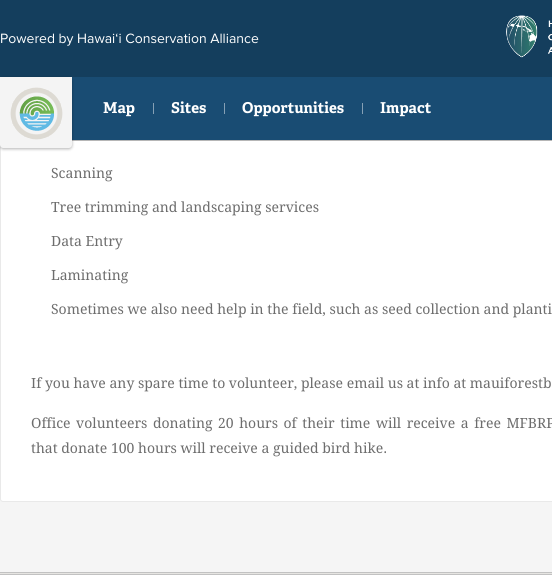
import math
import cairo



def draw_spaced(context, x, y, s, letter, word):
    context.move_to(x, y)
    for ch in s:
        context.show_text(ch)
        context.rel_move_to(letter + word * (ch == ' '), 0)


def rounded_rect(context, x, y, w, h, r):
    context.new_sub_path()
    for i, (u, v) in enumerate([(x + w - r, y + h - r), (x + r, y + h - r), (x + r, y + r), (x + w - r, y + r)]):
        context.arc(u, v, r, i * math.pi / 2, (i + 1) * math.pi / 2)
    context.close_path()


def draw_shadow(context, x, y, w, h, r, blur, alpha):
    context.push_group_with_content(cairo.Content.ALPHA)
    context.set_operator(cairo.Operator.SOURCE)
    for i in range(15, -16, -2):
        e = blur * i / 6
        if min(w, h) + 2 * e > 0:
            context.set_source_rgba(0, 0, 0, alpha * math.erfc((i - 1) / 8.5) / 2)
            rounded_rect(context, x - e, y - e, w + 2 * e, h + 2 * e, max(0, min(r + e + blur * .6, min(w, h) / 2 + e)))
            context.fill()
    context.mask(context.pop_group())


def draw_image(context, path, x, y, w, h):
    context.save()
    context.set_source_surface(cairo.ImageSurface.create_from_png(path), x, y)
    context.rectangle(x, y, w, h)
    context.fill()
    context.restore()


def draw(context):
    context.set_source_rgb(245 / 255, 245 / 255, 245 / 255)
    context.paint()
    context.set_source_rgb(1, 1, 1)
    rounded_rect(context, 0.5, -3.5, 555, 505, 2.5)
    context.fill_preserve()
    context.set_source_rgb(233 / 255, 233 / 255, 233 / 255)
    context.set_line_width(1)
    context.stroke()
    context.set_source_rgb(20 / 255, 62 / 255, 93 / 255)
    context.rectangle(0, 0, 552, 77)
    context.fill()
    draw_image(context, "images/1.png", 506, 15, 46, 43)
    context.set_source_rgb(25 / 255, 76 / 255, 115 / 255)
    context.rectangle(72, 77, 480, 63)
    context.fill()
    context.set_source_rgb(182 / 255, 182 / 255, 182 / 255)
    context.rectangle(72, 140, 480, 1)
    context.fill()
    context.set_source_rgb(0, 0, 0)
    draw_shadow(context, 0, 78, 72, 71, 3, 1.5, 0.3)
    context.set_source_rgb(244 / 255, 244 / 255, 244 / 255)
    context.new_path()
    context.move_to(0, 77)
    context.line_to(72, 77)
    context.line_to(72, 145)
    context.curve_to(72, 146.5, 70.5, 148, 69, 148)
    context.line_to(3, 148)
    context.curve_to(1.5, 148, 0, 146.5, 0, 145)
    context.close_path()
    context.fill()
    draw_image(context, "images/2.png", 10, 87, 53, 53)
    context.set_source_rgb(133 / 255, 160 / 255, 181 / 255)
    context.rectangle(153, 103, 1, 11)
    context.fill()
    context.rectangle(224, 103, 1, 11)
    context.fill()
    context.rectangle(362, 103, 1, 11)
    context.fill()
    context.set_source_rgb(230 / 255, 229 / 255, 226 / 255)
    context.rectangle(0, 573, 552, 1)
    context.fill()
    context.set_source_rgb(194 / 255, 194 / 255, 194 / 255)
    context.rectangle(0, 572, 552, 1)
    context.fill()
    context.set_source_rgb(1, 1, 1)
    context.rectangle(0, 575, 552, 9)
    context.fill()
    context.set_source_rgb(194 / 255, 194 / 255, 194 / 255)
    context.rectangle(0, 574, 552, 1)
    context.fill()
    context.select_font_face("Proxima Nova")
    context.set_font_size(14)
    context.set_source_rgb(1, 1, 1)
    context.move_to(0, 43)
    context.show_text("Powered by Hawai‘i Conservation Alliance")
    context.select_font_face("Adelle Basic", cairo.FontSlant.NORMAL, cairo.FontWeight.BOLD)
    context.set_font_size(15)
    context.move_to(103, 113)
    context.show_text("Map")
    context.move_to(171, 113)
    context.show_text("Sites")
    context.move_to(242, 113)
    context.show_text("Opportunities")
    context.move_to(380, 113)
    context.show_text("Impact")
    context.select_font_face("Droid Serif")
    context.set_font_size(14)
    context.set_source_rgb(109 / 255, 109 / 255, 109 / 255)
    context.move_to(51, 178)
    context.show_text("Scanning")
    context.move_to(51, 212)
    context.show_text("Tree trimming and landscaping services")
    context.move_to(51, 246)
    context.show_text("Data Entry")
    context.move_to(51, 280)
    context.show_text("Laminating")
    context.move_to(51, 314)
    context.show_text("Sometimes we also need help in the field, such as seed collection and planti")
    context.move_to(31, 388)
    context.show_text("If you have any spare time to volunteer, please email us at info at mauiforestb")
    draw_spaced(context, 31, 428, "Office volunteers donating 20 hours of their time will receive a free MFBRP", 0, 1.9)
    context.move_to(31, 453)
    context.show_text("that donate 100 hours will receive a guided bird hike.")


surface = cairo.ImageSurface(cairo.Format.RGB24, 552, 584)
context = cairo.Context(surface)
options = cairo.FontOptions()
options.set_hint_metrics(cairo.HintMetrics.OFF)
options.set_hint_style(cairo.HintStyle.NONE)
context.set_font_options(options)
context.set_miter_limit(4)
draw(context)
surface.write_to_png("out.png")
